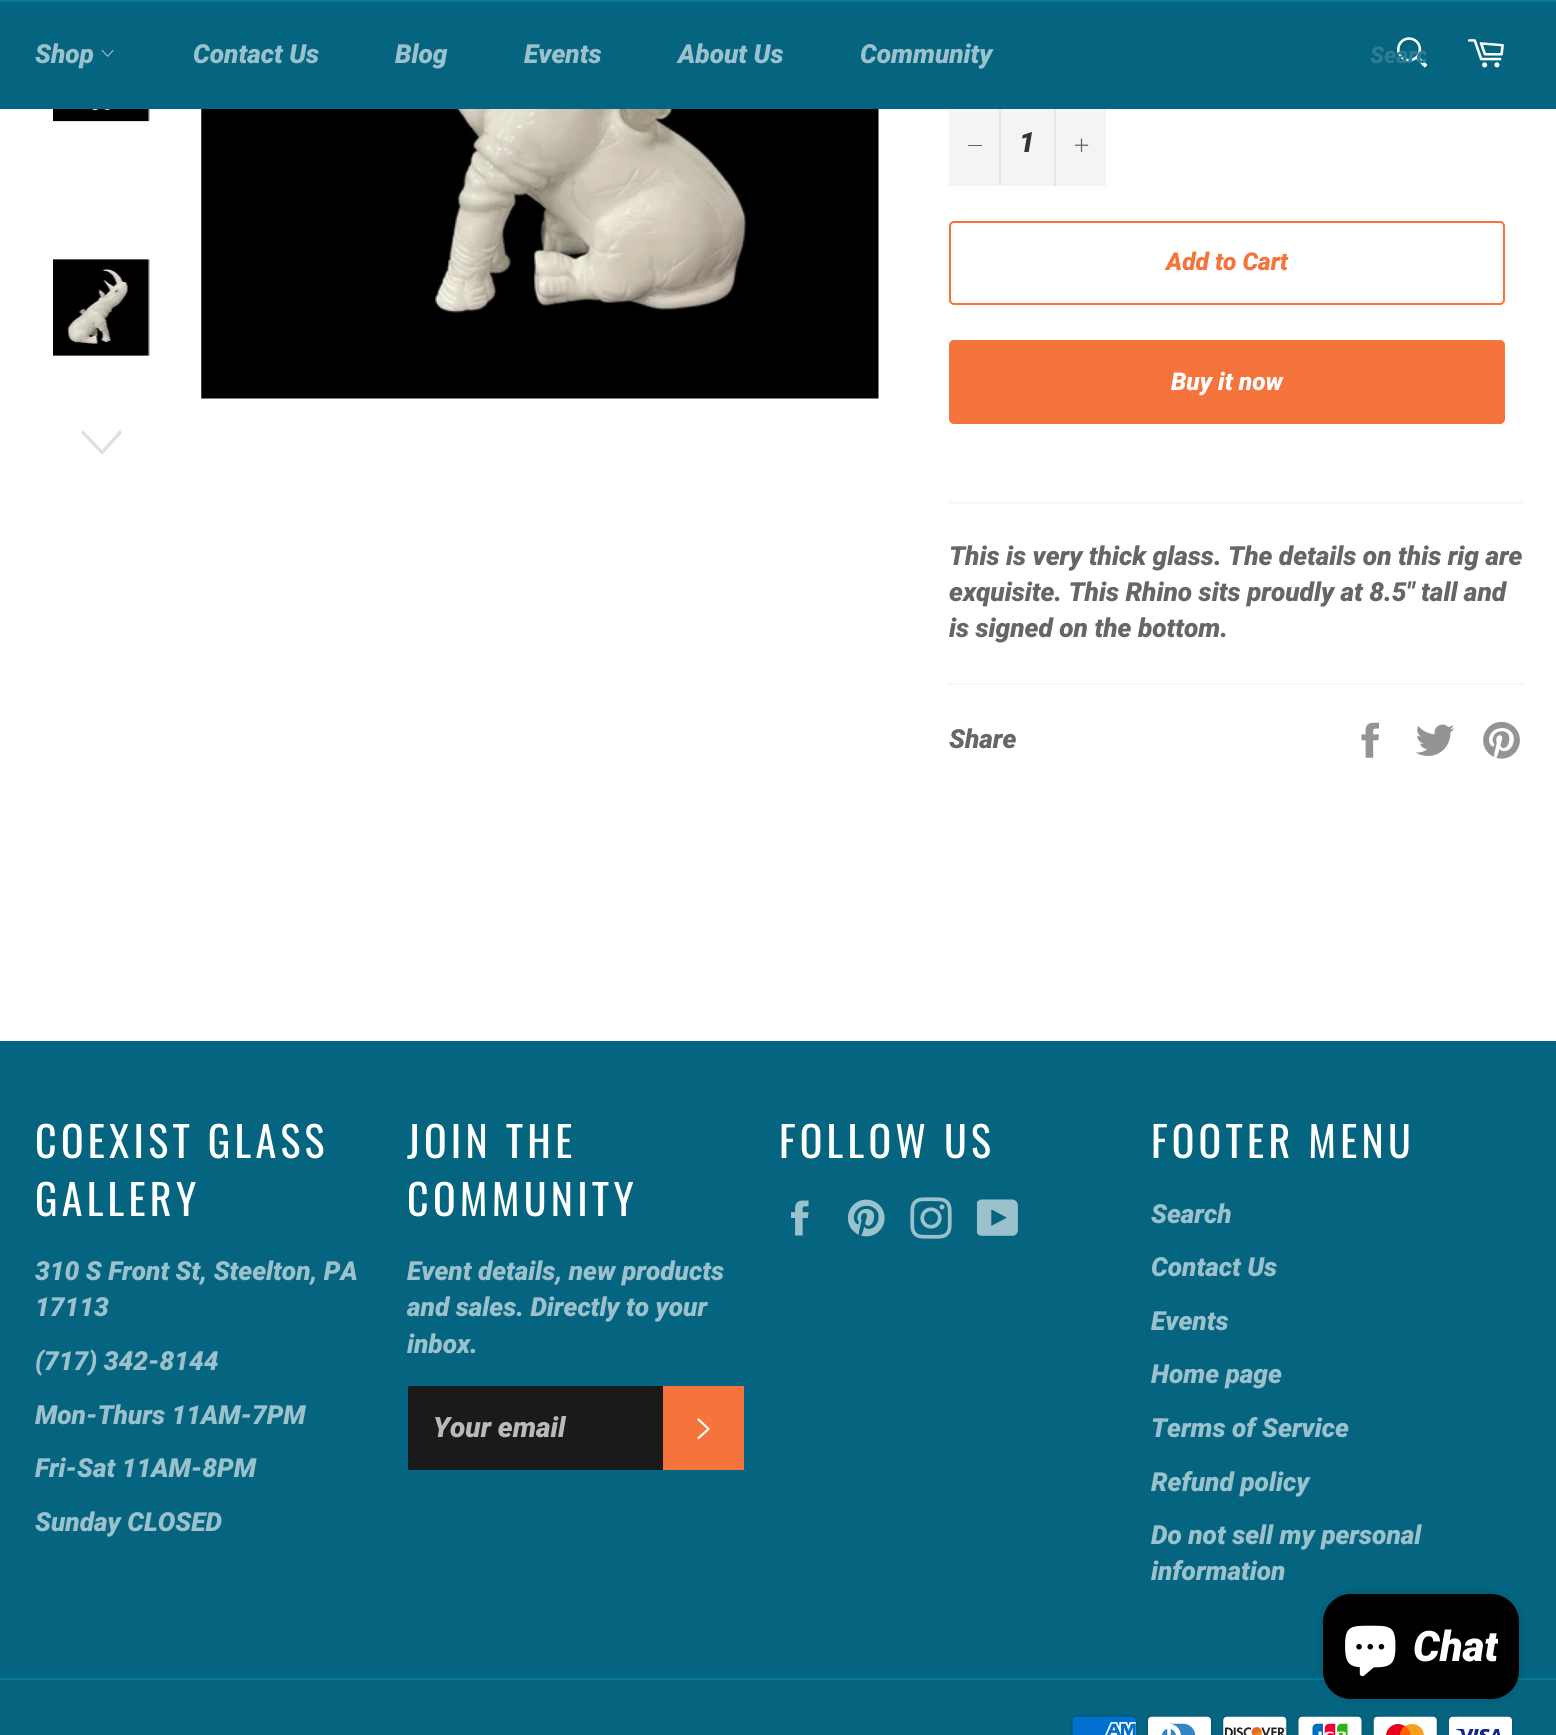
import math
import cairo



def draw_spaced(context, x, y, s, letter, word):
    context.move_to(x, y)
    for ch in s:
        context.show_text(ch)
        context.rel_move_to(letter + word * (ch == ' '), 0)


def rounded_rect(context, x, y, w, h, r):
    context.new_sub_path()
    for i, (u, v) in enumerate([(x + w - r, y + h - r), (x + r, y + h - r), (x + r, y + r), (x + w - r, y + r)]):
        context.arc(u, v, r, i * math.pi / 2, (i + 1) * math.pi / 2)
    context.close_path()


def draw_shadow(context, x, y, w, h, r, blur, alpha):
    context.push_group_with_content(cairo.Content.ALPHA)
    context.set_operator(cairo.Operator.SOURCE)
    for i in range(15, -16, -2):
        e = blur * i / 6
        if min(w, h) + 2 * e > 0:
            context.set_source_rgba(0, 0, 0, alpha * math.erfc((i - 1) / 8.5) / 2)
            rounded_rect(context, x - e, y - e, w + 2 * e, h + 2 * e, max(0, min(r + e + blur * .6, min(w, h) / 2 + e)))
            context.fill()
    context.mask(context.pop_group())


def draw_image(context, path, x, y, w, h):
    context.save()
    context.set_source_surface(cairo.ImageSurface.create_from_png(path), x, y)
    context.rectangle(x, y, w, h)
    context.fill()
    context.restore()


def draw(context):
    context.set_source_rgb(1, 1, 1)
    context.paint()
    context.set_source_rgb(244 / 255, 244 / 255, 244 / 255)
    context.rectangle(949, 109, 157, 77)
    context.fill()
    context.set_source_rgb(231 / 255, 231 / 255, 231 / 255)
    context.rectangle(999, 102, 2, 84)
    context.fill()
    context.rectangle(1054, 102, 2, 84)
    context.fill()
    context.set_source_rgb(5 / 255, 100 / 255, 128 / 255)
    context.rectangle(0, 2, 1556, 107)
    context.fill()
    context.set_source_rgb(6 / 255, 119 / 255, 153 / 255)
    context.rectangle(0, 0, 1556, 2)
    context.fill()
    draw_image(context, "images/1.png", 101, 49, 13, 8)
    draw_image(context, "images/2.png", 1397, 37, 31, 31)
    draw_image(context, "images/3.png", 1467, 39, 37, 29)
    draw_image(context, "images/4.png", 53, 109, 97, 13)
    draw_image(context, "images/5.png", 53, 259, 97, 97)
    context.set_source_rgb(224 / 255, 224 / 255, 224 / 255)
    context.new_path()
    context.move_to(120, 430)
    context.line_to(122, 433)
    context.line_to(102, 455)
    context.line_to(81, 433)
    context.line_to(83, 430)
    context.line_to(102, 450)
    context.close_path()
    context.fill()
    draw_image(context, "images/6.png", 201, 109, 678, 290)
    context.set_source_rgb(102 / 255, 102 / 255, 102 / 255)
    context.rectangle(968, 145, 14, 1)
    context.fill()
    draw_image(context, "images/7.png", 1075, 138, 14, 14)
    rounded_rect(context, 950, 222, 554, 82, 4)
    context.set_source_rgb(244 / 255, 116 / 255, 60 / 255)
    context.stroke()
    rounded_rect(context, 949, 340, 556, 84, 5)
    context.fill()
    context.set_source_rgb(247 / 255, 247 / 255, 247 / 255)
    context.rectangle(949, 502, 574, 2)
    context.fill()
    context.rectangle(949, 683, 574, 2)
    context.fill()
    draw_image(context, "images/8.png", 1361, 722, 18, 36)
    draw_image(context, "images/9.png", 1416, 724, 39, 32)
    draw_image(context, "images/10.png", 1483, 721, 37, 38)
    context.set_source_rgb(5 / 255, 100 / 255, 128 / 255)
    context.rectangle(0, 1041, 1556, 694)
    context.fill()
    context.set_source_rgb(26 / 255, 26 / 255, 26 / 255)
    context.rectangle(408, 1386, 255, 84)
    context.fill()
    context.set_source_rgb(244 / 255, 116 / 255, 60 / 255)
    context.rectangle(663, 1386, 81, 84)
    context.fill()
    context.set_source_rgb(1, 1, 1)
    context.new_path()
    context.move_to(697, 1419.5)
    context.line_to(698.5, 1418)
    context.line_to(710, 1429)
    context.line_to(698.5, 1439.5)
    context.line_to(697, 1438)
    context.line_to(707, 1429)
    context.close_path()
    context.fill()
    draw_image(context, "images/11.png", 791, 1200, 18, 36)
    draw_image(context, "images/12.png", 847, 1199, 38, 38)
    draw_image(context, "images/13.png", 910, 1197, 42, 42)
    draw_image(context, "images/14.png", 977, 1199, 41, 37)
    context.set_source_rgb(6 / 255, 119 / 255, 153 / 255)
    context.rectangle(0, 1678, 1556, 2)
    context.fill()
    draw_image(context, "images/15.png", 1071, 1715, 67, 20)
    draw_image(context, "images/16.png", 1146, 1715, 67, 20)
    draw_image(context, "images/17.png", 1222, 1715, 66, 20)
    draw_image(context, "images/18.png", 1297, 1715, 66, 20)
    draw_image(context, "images/19.png", 1372, 1715, 67, 20)
    draw_image(context, "images/20.png", 1447, 1715, 67, 20)
    context.set_source_rgb(0, 0, 0)
    draw_shadow(context, 1323, 1594, 196, 105, 28, 4.5, 0.15)
    context.set_source_rgb(0, 0, 0)
    rounded_rect(context, 1323, 1594, 196, 105, 28)
    context.fill()
    draw_image(context, "images/21.png", 1345, 1625, 51, 52)
    context.select_font_face("Roboto Black", cairo.FontSlant.ITALIC)
    context.set_font_size(26.25)
    context.set_source_rgb(155 / 255, 193 / 255, 204 / 255)
    context.move_to(35, 63)
    context.show_text("Shop")
    context.move_to(193, 63)
    context.show_text("Contact Us")
    context.move_to(395, 63)
    context.show_text("Blog")
    context.move_to(524, 63)
    context.show_text("Events")
    context.move_to(678, 63)
    context.show_text("About Us")
    context.move_to(860, 63)
    context.show_text("Community")
    context.save()
    context.rectangle(1370, 42, 56, 26)
    context.clip()
    context.set_font_size(23)
    context.set_source_rgb(44 / 255, 124 / 255, 148 / 255)
    context.move_to(1370, 63)
    context.show_text("Searc")
    context.restore()
    context.set_font_size(28)
    context.set_source_rgb(51 / 255, 51 / 255, 51 / 255)
    context.move_to(1019, 152)
    context.show_text("1")
    context.set_font_size(24.5)
    context.set_source_rgb(244 / 255, 116 / 255, 60 / 255)
    context.move_to(1166, 270)
    context.show_text("Add to Cart")
    context.set_source_rgb(1, 1, 1)
    context.move_to(1171, 390)
    context.show_text("Buy it now")
    context.set_font_size(26.25)
    context.set_source_rgb(102 / 255, 102 / 255, 102 / 255)
    context.move_to(949, 565)
    context.show_text("This is very thick glass. The details on this rig are")
    context.move_to(949, 601)
    context.show_text("exquisite. This Rhino sits proudly at 8.5\" tall and")
    context.move_to(949, 637)
    context.show_text("is signed on the bottom.")
    context.move_to(949, 748)
    context.show_text("Share")
    context.select_font_face("Oswald")
    context.set_font_size(42)
    context.set_source_rgb(1, 1, 1)
    draw_spaced(context, 35, 1158, "COEXIST GLASS", 4.25, 0)
    draw_spaced(context, 35, 1216, "GALLERY", 4.25, 0)
    context.select_font_face("Roboto Black", cairo.FontSlant.ITALIC)
    context.set_font_size(26.25)
    context.set_source_rgb(155 / 255, 193 / 255, 204 / 255)
    context.move_to(35, 1280)
    context.show_text("310 S Front St, Steelton, PA")
    context.move_to(35, 1316)
    context.show_text("17113")
    context.move_to(35, 1370)
    context.show_text("(717) 342-8144")
    context.move_to(35, 1424)
    context.show_text("Mon-Thurs 11AM-7PM")
    context.move_to(35, 1477)
    context.show_text("Fri-Sat 11AM-8PM")
    context.move_to(35, 1531)
    context.show_text("Sunday CLOSED")
    context.select_font_face("Oswald")
    context.set_font_size(42)
    context.set_source_rgb(1, 1, 1)
    draw_spaced(context, 407, 1158, "JOIN THE", 4.25, 0)
    draw_spaced(context, 407, 1216, "COMMUNITY", 4.25, 0)
    context.select_font_face("Roboto Black", cairo.FontSlant.ITALIC)
    context.set_font_size(26.25)
    context.set_source_rgb(155 / 255, 193 / 255, 204 / 255)
    context.move_to(407, 1280)
    context.show_text("Event details, new products")
    context.move_to(407, 1316)
    context.show_text("and sales. Directly to your")
    context.move_to(407, 1353)
    context.show_text("inbox.")
    context.set_font_size(28)
    context.set_source_rgb(186 / 255, 186 / 255, 186 / 255)
    context.move_to(433, 1437)
    context.show_text("Your email")
    context.select_font_face("Oswald")
    context.set_font_size(42)
    context.set_source_rgb(1, 1, 1)
    draw_spaced(context, 779, 1158, "FOLLOW US", 4.25, 0)
    draw_spaced(context, 1151, 1158, "FOOTER MENU", 4.25, 0)
    context.select_font_face("Roboto Black", cairo.FontSlant.ITALIC)
    context.set_font_size(26.25)
    context.set_source_rgb(155 / 255, 193 / 255, 204 / 255)
    context.move_to(1151, 1223)
    context.show_text("Search")
    context.move_to(1151, 1276)
    context.show_text("Contact Us")
    context.move_to(1151, 1330)
    context.show_text("Events")
    context.move_to(1151, 1383)
    context.show_text("Home page")
    context.move_to(1151, 1437)
    context.show_text("Terms of Service")
    context.move_to(1151, 1491)
    context.show_text("Refund policy")
    context.move_to(1151, 1544)
    context.show_text("Do not sell my personal")
    context.move_to(1151, 1580)
    context.show_text("information")
    context.save()
    context.rectangle(1412, 1621, 86, 52)
    context.clip()
    context.set_font_size(42)
    context.set_source_rgb(1, 1, 1)
    context.move_to(1413, 1661)
    context.show_text("Chat")
    context.restore()


surface = cairo.ImageSurface(cairo.Format.RGB24, 1556, 1735)
context = cairo.Context(surface)
options = cairo.FontOptions()
options.set_hint_metrics(cairo.HintMetrics.OFF)
options.set_hint_style(cairo.HintStyle.NONE)
context.set_font_options(options)
context.set_miter_limit(4)
draw(context)
surface.write_to_png("out.png")
